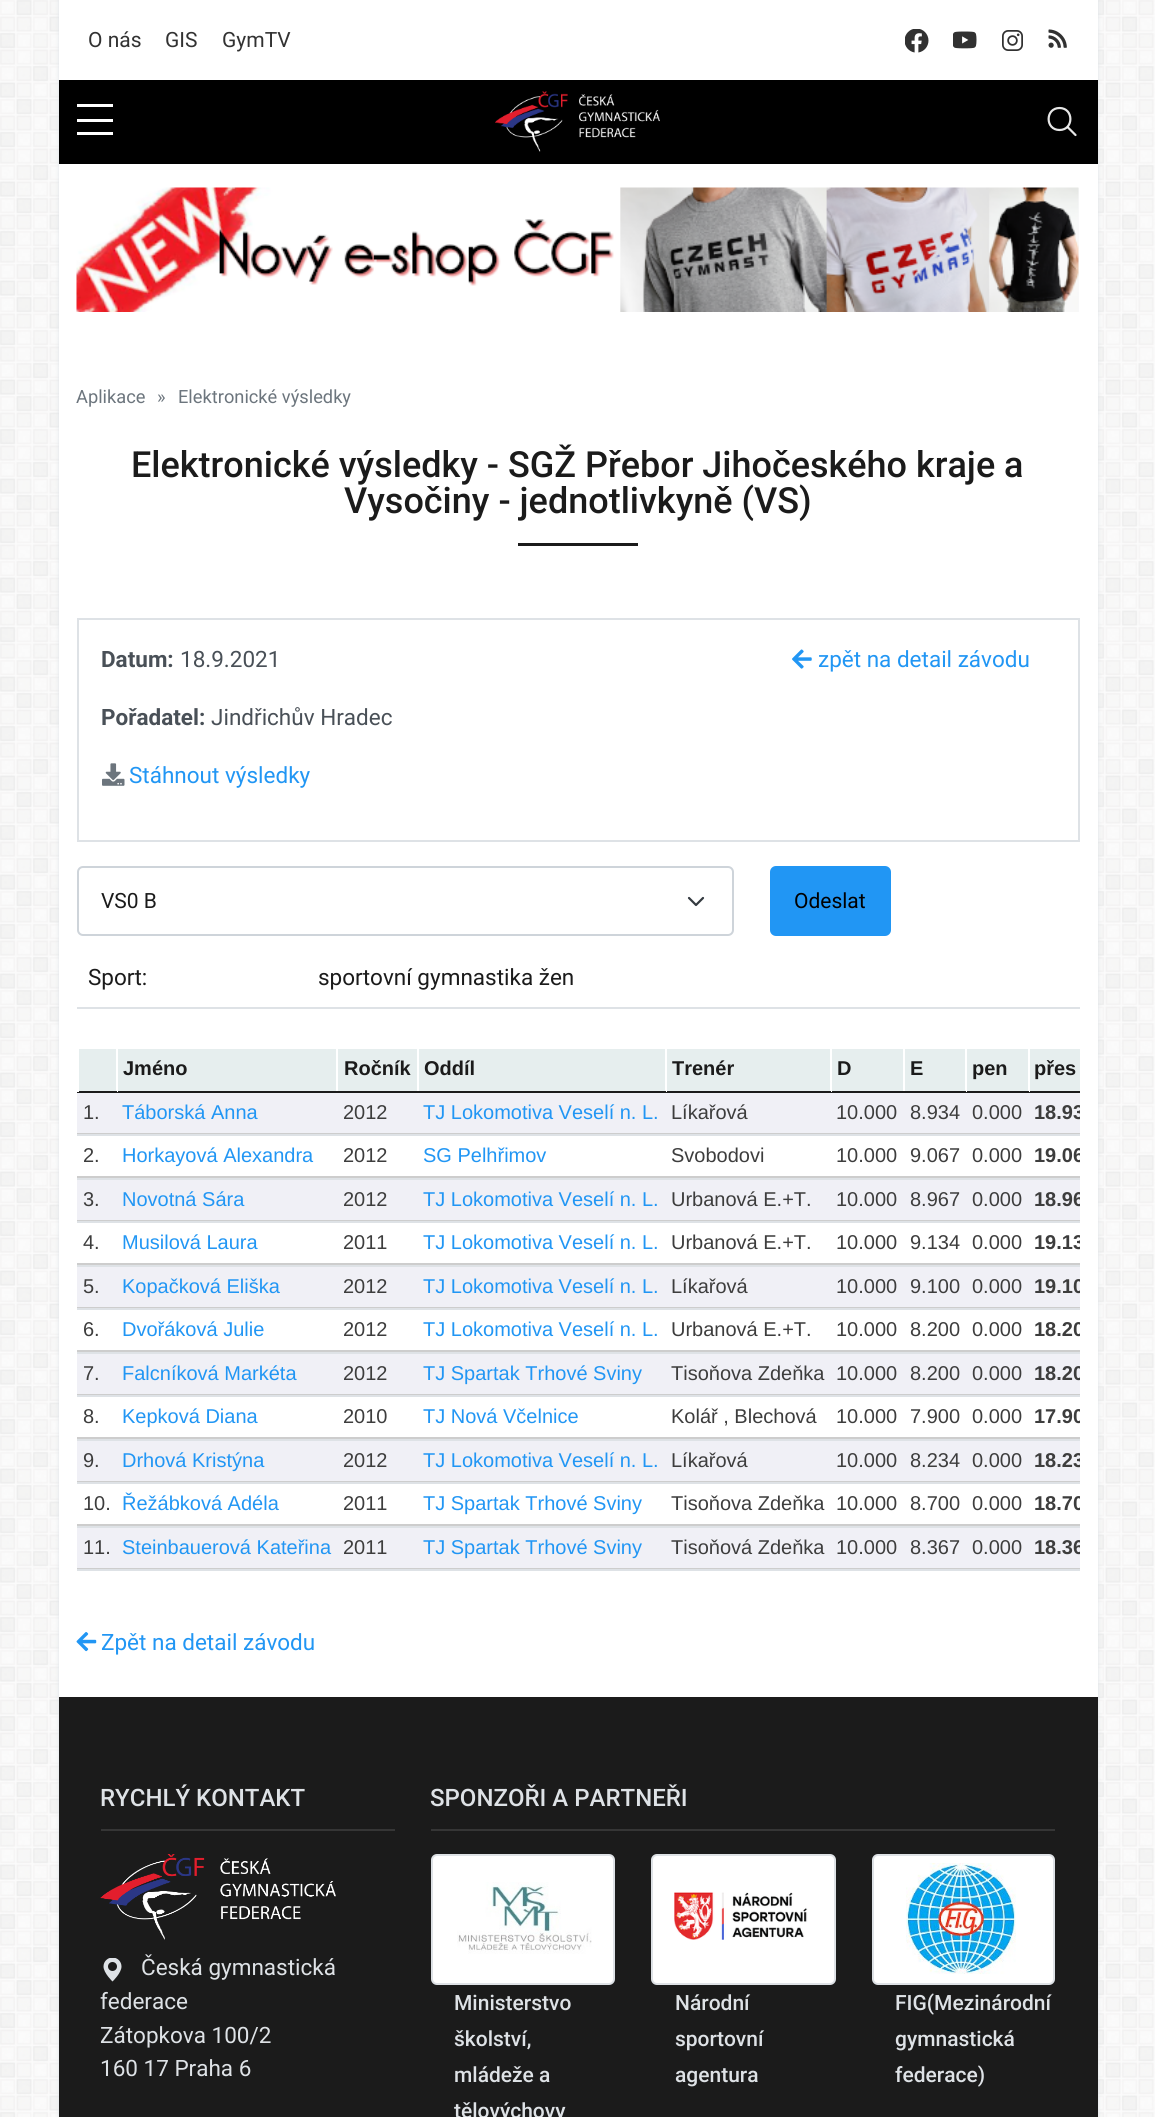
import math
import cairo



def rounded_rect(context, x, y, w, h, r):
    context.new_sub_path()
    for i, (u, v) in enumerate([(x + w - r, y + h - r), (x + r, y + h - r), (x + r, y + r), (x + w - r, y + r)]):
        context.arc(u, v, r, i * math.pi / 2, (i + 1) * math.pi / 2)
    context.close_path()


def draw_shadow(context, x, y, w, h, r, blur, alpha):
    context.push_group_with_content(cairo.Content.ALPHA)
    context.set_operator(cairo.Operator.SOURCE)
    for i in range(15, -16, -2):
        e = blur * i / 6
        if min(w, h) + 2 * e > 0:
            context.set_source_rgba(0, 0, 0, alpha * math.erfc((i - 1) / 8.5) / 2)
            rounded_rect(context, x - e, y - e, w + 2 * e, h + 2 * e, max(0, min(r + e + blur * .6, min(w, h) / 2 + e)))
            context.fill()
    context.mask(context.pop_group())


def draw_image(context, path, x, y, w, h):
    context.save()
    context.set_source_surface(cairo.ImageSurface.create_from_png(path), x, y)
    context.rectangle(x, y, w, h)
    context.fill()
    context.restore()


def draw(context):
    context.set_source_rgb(1, 1, 1)
    context.paint()
    draw_image(context, "images/1.png", 0, 0, 1155, 2117)
    context.set_source_rgb(222 / 255, 226 / 255, 230 / 255)
    draw_shadow(context, 59, 0, 1039, 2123, 0, 2, 1)
    context.set_source_rgb(1, 1, 1)
    context.rectangle(59, 0, 1039, 1697)
    context.fill()
    draw_image(context, "images/2.png", 905, 29, 24, 24)
    draw_image(context, "images/3.png", 953, 31, 24, 18)
    draw_image(context, "images/4.png", 1002, 30, 21, 21)
    draw_image(context, "images/5.png", 1048, 29, 19, 19)
    context.set_source_rgb(0, 0, 0)
    context.rectangle(59, 80, 1039, 84)
    context.fill()
    context.set_source_rgb(1, 1, 1)
    context.rectangle(77, 104, 36, 3)
    context.fill()
    context.rectangle(77, 119, 36, 3)
    context.fill()
    context.rectangle(77, 132, 36, 3)
    context.fill()
    draw_image(context, "images/6.png", 495, 91, 165, 61)
    context.new_path()
    context.move_to(1059.5, 108)
    context.curve_to(1045, 108, 1045, 130, 1059.5, 130)
    context.curve_to(1074, 130, 1074, 108, 1059.5, 108)
    context.close_path()
    context.set_source_rgb(230 / 255, 230 / 255, 230 / 255)
    context.set_line_width(2.2)
    context.stroke()
    context.new_path()
    context.move_to(1068, 127.5)
    context.line_to(1075.5, 135)
    context.set_source_rgba(1, 1, 1, 0.9)
    context.set_line_cap(cairo.LineCap.ROUND)
    context.stroke()
    context.set_source_rgb(248 / 255, 249 / 255, 250 / 255)
    context.rectangle(1078, 188, 1, 124)
    context.fill()
    draw_image(context, "images/7.png", 76, 187, 1003, 125)
    context.set_source_rgb(27 / 255, 27 / 255, 27 / 255)
    context.rectangle(518, 543, 120, 3)
    context.fill()
    context.rectangle(78, 619, 1001, 222)
    context.set_source_rgb(222 / 255, 226 / 255, 230 / 255)
    context.set_line_width(2)
    context.set_line_cap(cairo.LineCap.BUTT)
    context.stroke()
    draw_image(context, "images/8.png", 792, 649, 20, 20)
    draw_image(context, "images/9.png", 102, 763, 23, 23)
    context.new_path()
    context.move_to(689, 898)
    context.line_to(696, 905)
    context.line_to(703, 898)
    context.set_source_rgb(52 / 255, 58 / 255, 64 / 255)
    context.set_line_width(2.2)
    context.set_line_cap(cairo.LineCap.ROUND)
    context.set_line_join(cairo.LineJoin.ROUND)
    context.stroke()
    rounded_rect(context, 78, 867, 655, 68, 5)
    context.set_source_rgb(206 / 255, 212 / 255, 218 / 255)
    context.set_line_width(2)
    context.set_line_cap(cairo.LineCap.BUTT)
    context.set_line_join(cairo.LineJoin.MITER)
    context.stroke()
    context.set_source_rgb(33 / 255, 150 / 255, 244 / 255)
    rounded_rect(context, 771, 867, 119, 68, 5)
    context.fill_preserve()
    context.stroke()
    context.set_source_rgb(222 / 255, 226 / 255, 230 / 255)
    context.rectangle(77, 1007, 1003, 2)
    context.fill()
    context.set_source_rgb(205 / 255, 205 / 255, 205 / 255)
    context.rectangle(77, 1133, 1003, 436)
    context.fill()
    context.set_source_rgb(230 / 255, 238 / 255, 238 / 255)
    context.rectangle(79, 1049, 37, 42)
    context.fill()
    context.set_source_rgb(27 / 255, 27 / 255, 27 / 255)
    context.rectangle(1028, 1091, 52, 2)
    context.fill()
    context.set_source_rgb(1, 1, 1)
    context.rectangle(1028, 1091, 2, 1)
    context.fill()
    context.set_source_rgb(27 / 255, 27 / 255, 27 / 255)
    context.rectangle(965, 1091, 64, 2)
    context.fill()
    context.set_source_rgb(1, 1, 1)
    context.rectangle(965, 1091, 2, 1)
    context.fill()
    context.set_source_rgb(27 / 255, 27 / 255, 27 / 255)
    context.rectangle(903, 1091, 63, 2)
    context.fill()
    context.set_source_rgb(1, 1, 1)
    context.rectangle(903, 1091, 2, 1)
    context.fill()
    context.set_source_rgb(27 / 255, 27 / 255, 27 / 255)
    context.rectangle(830, 1091, 75, 2)
    context.fill()
    context.set_source_rgb(1, 1, 1)
    context.rectangle(830, 1091, 2, 1)
    context.fill()
    context.set_source_rgb(27 / 255, 27 / 255, 27 / 255)
    context.rectangle(665, 1091, 166, 2)
    context.fill()
    context.set_source_rgb(1, 1, 1)
    context.rectangle(665, 1091, 2, 1)
    context.fill()
    context.set_source_rgb(27 / 255, 27 / 255, 27 / 255)
    context.rectangle(417, 1091, 249, 2)
    context.fill()
    context.set_source_rgb(1, 1, 1)
    context.rectangle(417, 1091, 2, 1)
    context.fill()
    context.set_source_rgb(27 / 255, 27 / 255, 27 / 255)
    context.rectangle(336, 1091, 83, 2)
    context.fill()
    context.set_source_rgb(1, 1, 1)
    context.rectangle(336, 1091, 2, 1)
    context.fill()
    context.set_source_rgb(27 / 255, 27 / 255, 27 / 255)
    context.rectangle(116, 1091, 222, 2)
    context.fill()
    context.set_source_rgb(1, 1, 1)
    context.rectangle(116, 1091, 2, 1)
    context.fill()
    context.set_source_rgb(27 / 255, 27 / 255, 27 / 255)
    context.rectangle(77, 1091, 40, 2)
    context.fill()
    context.set_source_rgb(1, 1, 1)
    context.rectangle(77, 1091, 2, 1)
    context.fill()
    context.set_source_rgb(230 / 255, 238 / 255, 238 / 255)
    context.rectangle(118, 1049, 218, 42)
    context.fill()
    context.rectangle(338, 1049, 79, 42)
    context.fill()
    context.rectangle(419, 1049, 246, 42)
    context.fill()
    context.rectangle(667, 1049, 163, 42)
    context.fill()
    context.rectangle(832, 1049, 71, 42)
    context.fill()
    context.rectangle(905, 1049, 60, 42)
    context.fill()
    context.rectangle(967, 1049, 61, 42)
    context.fill()
    context.rectangle(1030, 1049, 50, 42)
    context.fill()
    context.set_source_rgb(240 / 255, 240 / 255, 246 / 255)
    context.rectangle(77, 1093, 1003, 40)
    context.fill()
    context.set_source_rgb(222 / 255, 226 / 255, 230 / 255)
    context.rectangle(77, 1134, 1003, 2)
    context.fill()
    context.set_source_rgb(1, 1, 1)
    context.rectangle(77, 1136, 1003, 40)
    context.fill()
    context.set_source_rgb(222 / 255, 226 / 255, 230 / 255)
    context.rectangle(77, 1178, 1003, 2)
    context.fill()
    context.set_source_rgb(240 / 255, 240 / 255, 246 / 255)
    context.rectangle(77, 1180, 1003, 40)
    context.fill()
    context.set_source_rgb(222 / 255, 226 / 255, 230 / 255)
    context.rectangle(77, 1221, 1003, 2)
    context.fill()
    context.set_source_rgb(1, 1, 1)
    context.rectangle(77, 1223, 1003, 40)
    context.fill()
    context.set_source_rgb(222 / 255, 226 / 255, 230 / 255)
    context.rectangle(77, 1265, 1003, 2)
    context.fill()
    context.set_source_rgb(240 / 255, 240 / 255, 246 / 255)
    context.rectangle(77, 1267, 1003, 40)
    context.fill()
    context.set_source_rgb(222 / 255, 226 / 255, 230 / 255)
    context.rectangle(77, 1308, 1003, 2)
    context.fill()
    context.set_source_rgb(1, 1, 1)
    context.rectangle(77, 1310, 1003, 40)
    context.fill()
    context.set_source_rgb(222 / 255, 226 / 255, 230 / 255)
    context.rectangle(77, 1352, 1003, 2)
    context.fill()
    context.set_source_rgb(240 / 255, 240 / 255, 246 / 255)
    context.rectangle(77, 1354, 1003, 40)
    context.fill()
    context.set_source_rgb(222 / 255, 226 / 255, 230 / 255)
    context.rectangle(77, 1395, 1003, 2)
    context.fill()
    context.set_source_rgb(1, 1, 1)
    context.rectangle(77, 1397, 1003, 40)
    context.fill()
    context.set_source_rgb(222 / 255, 226 / 255, 230 / 255)
    context.rectangle(77, 1439, 1003, 2)
    context.fill()
    context.set_source_rgb(240 / 255, 240 / 255, 246 / 255)
    context.rectangle(77, 1441, 1003, 40)
    context.fill()
    context.set_source_rgb(222 / 255, 226 / 255, 230 / 255)
    context.rectangle(77, 1482, 1003, 2)
    context.fill()
    context.set_source_rgb(1, 1, 1)
    context.rectangle(77, 1484, 1003, 40)
    context.fill()
    context.set_source_rgb(222 / 255, 226 / 255, 230 / 255)
    context.rectangle(77, 1526, 1003, 2)
    context.fill()
    context.set_source_rgb(240 / 255, 240 / 255, 246 / 255)
    context.rectangle(77, 1528, 1003, 40)
    context.fill()
    context.set_source_rgb(222 / 255, 226 / 255, 230 / 255)
    context.rectangle(77, 1569, 1003, 2)
    context.fill()
    draw_image(context, "images/10.png", 76, 1632, 21, 20)
    context.set_source_rgb(27 / 255, 27 / 255, 27 / 255)
    context.rectangle(59, 1697, 1039, 420)
    context.fill()
    context.set_source_rgb(54 / 255, 54 / 255, 54 / 255)
    context.rectangle(101, 1829, 294, 2)
    context.fill()
    draw_image(context, "images/11.png", 100, 1854, 236, 86)
    draw_image(context, "images/12.png", 103, 1958, 19, 24)
    context.rectangle(431, 1829, 624, 2)
    context.fill()
    context.set_source_rgb(1, 1, 1)
    rounded_rect(context, 432, 1855, 182, 129, 5)
    context.fill_preserve()
    context.set_source_rgb(222 / 255, 226 / 255, 230 / 255)
    context.stroke()
    draw_image(context, "images/13.png", 457, 1882, 135, 72)
    context.set_source_rgb(1, 1, 1)
    rounded_rect(context, 652, 1855, 183, 129, 5)
    context.fill_preserve()
    context.set_source_rgb(222 / 255, 226 / 255, 230 / 255)
    context.stroke()
    draw_image(context, "images/14.png", 674, 1892, 134, 48)
    context.set_source_rgb(1, 1, 1)
    rounded_rect(context, 873, 1855, 181, 129, 5)
    context.fill_preserve()
    context.set_source_rgb(222 / 255, 226 / 255, 230 / 255)
    context.stroke()
    draw_image(context, "images/15.png", 906, 1863, 110, 111)
    context.select_font_face("Roboto")
    context.set_font_size(21)
    context.set_source_rgb(50 / 255, 50 / 255, 50 / 255)
    context.move_to(88, 47)
    context.show_text("O nás")
    context.move_to(165, 47)
    context.show_text("GIS")
    context.move_to(222, 47)
    context.show_text("GymTV")
    context.set_font_size(18.25)
    context.set_source_rgb(108 / 255, 117 / 255, 125 / 255)
    context.move_to(76, 403)
    context.show_text("Aplikace")
    context.move_to(157, 403)
    context.show_text("»")
    context.move_to(178, 403)
    context.show_text("Elektronické výsledky")
    context.select_font_face("Roboto Medium")
    context.set_font_size(36)
    context.set_source_rgb(27 / 255, 27 / 255, 27 / 255)
    context.move_to(131, 477)
    context.show_text("Elektronické výsledky - SGŽ Přebor Jihočeského kraje a")
    context.move_to(344, 513)
    context.show_text("Vysočiny - jednotlivkyně (VS)")
    context.select_font_face("Roboto", cairo.FontSlant.NORMAL, cairo.FontWeight.BOLD)
    context.set_font_size(22.5)
    context.set_source_rgb(73 / 255, 80 / 255, 87 / 255)
    context.move_to(101, 667)
    context.show_text("Datum:")
    context.select_font_face("Roboto")
    context.move_to(180, 667)
    context.show_text("18.9.2021")
    context.set_source_rgb(33 / 255, 150 / 255, 244 / 255)
    context.move_to(818, 667)
    context.show_text("zpět na detail závodu")
    context.select_font_face("Roboto", cairo.FontSlant.NORMAL, cairo.FontWeight.BOLD)
    context.set_source_rgb(73 / 255, 80 / 255, 87 / 255)
    context.move_to(101, 725)
    context.show_text("Pořadatel:")
    context.select_font_face("Roboto")
    context.move_to(211, 725)
    context.show_text("Jindřichův Hradec")
    context.set_source_rgb(33 / 255, 150 / 255, 244 / 255)
    context.move_to(129, 783)
    context.show_text("Stáhnout výsledky")
    context.set_font_size(21)
    context.set_source_rgb(27 / 255, 27 / 255, 27 / 255)
    context.move_to(101, 908)
    context.show_text("VS0 B")
    context.set_source_rgb(0, 0, 0)
    context.move_to(794, 908)
    context.show_text("Odeslat")
    context.set_font_size(22.5)
    context.set_source_rgb(27 / 255, 27 / 255, 27 / 255)
    context.move_to(88, 985)
    context.show_text("Sport:")
    context.move_to(318, 985)
    context.show_text("sportovní gymnastika žen")
    context.select_font_face("Liberation Sans", cairo.FontSlant.NORMAL, cairo.FontWeight.BOLD)
    context.set_font_size(20)
    context.move_to(123, 1075)
    context.show_text("Jméno")
    context.move_to(344, 1075)
    context.show_text("Ročník")
    context.move_to(424, 1075)
    context.show_text("Oddíl")
    context.move_to(672, 1075)
    context.show_text("Trenér")
    context.move_to(837, 1075)
    context.show_text("D")
    context.move_to(910, 1075)
    context.show_text("E")
    context.move_to(972, 1075)
    context.show_text("pen")
    context.move_to(1034, 1075)
    context.show_text("přes")
    context.select_font_face("Liberation Sans")
    context.set_source_rgb(61 / 255, 61 / 255, 61 / 255)
    context.move_to(83, 1119)
    context.show_text("1.")
    context.set_source_rgb(33 / 255, 150 / 255, 244 / 255)
    context.move_to(122, 1119)
    context.show_text("Táborská Anna")
    context.set_source_rgb(61 / 255, 61 / 255, 61 / 255)
    context.move_to(343, 1119)
    context.show_text("2012")
    context.set_source_rgb(33 / 255, 150 / 255, 244 / 255)
    context.move_to(423, 1119)
    context.show_text("TJ Lokomotiva Veselí n. L.")
    context.set_source_rgb(61 / 255, 61 / 255, 61 / 255)
    context.move_to(671, 1119)
    context.show_text("Líkařová")
    context.move_to(836, 1119)
    context.show_text("10.000")
    context.move_to(910, 1119)
    context.show_text("8.934")
    context.move_to(972, 1119)
    context.show_text("0.000")
    context.save()
    context.rectangle(77, 1032, 1003, 561)
    context.clip()
    context.select_font_face("Liberation Sans", cairo.FontSlant.NORMAL, cairo.FontWeight.BOLD)
    context.move_to(1034, 1119)
    context.show_text("18.93")
    context.restore()
    context.move_to(83, 1162)
    context.show_text("2.")
    context.set_source_rgb(33 / 255, 150 / 255, 244 / 255)
    context.move_to(122, 1162)
    context.show_text("Horkayová Alexandra")
    context.set_source_rgb(61 / 255, 61 / 255, 61 / 255)
    context.move_to(343, 1162)
    context.show_text("2012")
    context.set_source_rgb(33 / 255, 150 / 255, 244 / 255)
    context.move_to(423, 1162)
    context.show_text("SG Pelhřimov")
    context.set_source_rgb(61 / 255, 61 / 255, 61 / 255)
    context.move_to(671, 1162)
    context.show_text("Svobodovi")
    context.move_to(836, 1162)
    context.show_text("10.000")
    context.move_to(910, 1162)
    context.show_text("9.067")
    context.move_to(972, 1162)
    context.show_text("0.000")
    context.save()
    context.rectangle(77, 1032, 1003, 561)
    context.clip()
    context.select_font_face("Liberation Sans", cairo.FontSlant.NORMAL, cairo.FontWeight.BOLD)
    context.move_to(1034, 1162)
    context.show_text("19.06")
    context.restore()
    context.move_to(83, 1206)
    context.show_text("3.")
    context.set_source_rgb(33 / 255, 150 / 255, 244 / 255)
    context.move_to(122, 1206)
    context.show_text("Novotná Sára")
    context.set_source_rgb(61 / 255, 61 / 255, 61 / 255)
    context.move_to(343, 1206)
    context.show_text("2012")
    context.set_source_rgb(33 / 255, 150 / 255, 244 / 255)
    context.move_to(423, 1206)
    context.show_text("TJ Lokomotiva Veselí n. L.")
    context.set_source_rgb(61 / 255, 61 / 255, 61 / 255)
    context.move_to(671, 1206)
    context.show_text("Urbanová E.+T.")
    context.move_to(836, 1206)
    context.show_text("10.000")
    context.move_to(910, 1206)
    context.show_text("8.967")
    context.move_to(972, 1206)
    context.show_text("0.000")
    context.save()
    context.rectangle(77, 1032, 1003, 561)
    context.clip()
    context.select_font_face("Liberation Sans", cairo.FontSlant.NORMAL, cairo.FontWeight.BOLD)
    context.move_to(1034, 1206)
    context.show_text("18.96")
    context.restore()
    context.move_to(83, 1249)
    context.show_text("4.")
    context.set_source_rgb(33 / 255, 150 / 255, 244 / 255)
    context.move_to(122, 1249)
    context.show_text("Musilová Laura")
    context.set_source_rgb(61 / 255, 61 / 255, 61 / 255)
    context.move_to(343, 1249)
    context.show_text("2011")
    context.set_source_rgb(33 / 255, 150 / 255, 244 / 255)
    context.move_to(423, 1249)
    context.show_text("TJ Lokomotiva Veselí n. L.")
    context.set_source_rgb(61 / 255, 61 / 255, 61 / 255)
    context.move_to(671, 1249)
    context.show_text("Urbanová E.+T.")
    context.move_to(836, 1249)
    context.show_text("10.000")
    context.move_to(910, 1249)
    context.show_text("9.134")
    context.move_to(972, 1249)
    context.show_text("0.000")
    context.save()
    context.rectangle(77, 1032, 1003, 561)
    context.clip()
    context.select_font_face("Liberation Sans", cairo.FontSlant.NORMAL, cairo.FontWeight.BOLD)
    context.move_to(1034, 1249)
    context.show_text("19.13")
    context.restore()
    context.move_to(83, 1293)
    context.show_text("5.")
    context.set_source_rgb(33 / 255, 150 / 255, 244 / 255)
    context.move_to(122, 1293)
    context.show_text("Kopačková Eliška")
    context.set_source_rgb(61 / 255, 61 / 255, 61 / 255)
    context.move_to(343, 1293)
    context.show_text("2012")
    context.set_source_rgb(33 / 255, 150 / 255, 244 / 255)
    context.move_to(423, 1293)
    context.show_text("TJ Lokomotiva Veselí n. L.")
    context.set_source_rgb(61 / 255, 61 / 255, 61 / 255)
    context.move_to(671, 1293)
    context.show_text("Líkařová")
    context.move_to(836, 1293)
    context.show_text("10.000")
    context.move_to(910, 1293)
    context.show_text("9.100")
    context.move_to(972, 1293)
    context.show_text("0.000")
    context.save()
    context.rectangle(77, 1032, 1003, 561)
    context.clip()
    context.select_font_face("Liberation Sans", cairo.FontSlant.NORMAL, cairo.FontWeight.BOLD)
    context.move_to(1034, 1293)
    context.show_text("19.10")
    context.restore()
    context.move_to(83, 1336)
    context.show_text("6.")
    context.set_source_rgb(33 / 255, 150 / 255, 244 / 255)
    context.move_to(122, 1336)
    context.show_text("Dvořáková Julie")
    context.set_source_rgb(61 / 255, 61 / 255, 61 / 255)
    context.move_to(343, 1336)
    context.show_text("2012")
    context.set_source_rgb(33 / 255, 150 / 255, 244 / 255)
    context.move_to(423, 1336)
    context.show_text("TJ Lokomotiva Veselí n. L.")
    context.set_source_rgb(61 / 255, 61 / 255, 61 / 255)
    context.move_to(671, 1336)
    context.show_text("Urbanová E.+T.")
    context.move_to(836, 1336)
    context.show_text("10.000")
    context.move_to(910, 1336)
    context.show_text("8.200")
    context.move_to(972, 1336)
    context.show_text("0.000")
    context.save()
    context.rectangle(77, 1032, 1003, 561)
    context.clip()
    context.select_font_face("Liberation Sans", cairo.FontSlant.NORMAL, cairo.FontWeight.BOLD)
    context.move_to(1034, 1336)
    context.show_text("18.20")
    context.restore()
    context.move_to(83, 1380)
    context.show_text("7.")
    context.set_source_rgb(33 / 255, 150 / 255, 244 / 255)
    context.move_to(122, 1380)
    context.show_text("Falcníková Markéta")
    context.set_source_rgb(61 / 255, 61 / 255, 61 / 255)
    context.move_to(343, 1380)
    context.show_text("2012")
    context.set_source_rgb(33 / 255, 150 / 255, 244 / 255)
    context.move_to(423, 1380)
    context.show_text("TJ Spartak Trhové Sviny")
    context.set_source_rgb(61 / 255, 61 / 255, 61 / 255)
    context.move_to(671, 1380)
    context.show_text("Tisoňova Zdeňka")
    context.move_to(836, 1380)
    context.show_text("10.000")
    context.move_to(910, 1380)
    context.show_text("8.200")
    context.move_to(972, 1380)
    context.show_text("0.000")
    context.save()
    context.rectangle(77, 1032, 1003, 561)
    context.clip()
    context.select_font_face("Liberation Sans", cairo.FontSlant.NORMAL, cairo.FontWeight.BOLD)
    context.move_to(1034, 1380)
    context.show_text("18.20")
    context.restore()
    context.move_to(83, 1423)
    context.show_text("8.")
    context.set_source_rgb(33 / 255, 150 / 255, 244 / 255)
    context.move_to(122, 1423)
    context.show_text("Kepková Diana")
    context.set_source_rgb(61 / 255, 61 / 255, 61 / 255)
    context.move_to(343, 1423)
    context.show_text("2010")
    context.set_source_rgb(33 / 255, 150 / 255, 244 / 255)
    context.move_to(423, 1423)
    context.show_text("TJ Nová Včelnice")
    context.set_source_rgb(61 / 255, 61 / 255, 61 / 255)
    context.move_to(671, 1423)
    context.show_text("Kolář , Blechová")
    context.move_to(836, 1423)
    context.show_text("10.000")
    context.move_to(910, 1423)
    context.show_text("7.900")
    context.move_to(972, 1423)
    context.show_text("0.000")
    context.save()
    context.rectangle(77, 1032, 1003, 561)
    context.clip()
    context.select_font_face("Liberation Sans", cairo.FontSlant.NORMAL, cairo.FontWeight.BOLD)
    context.move_to(1034, 1423)
    context.show_text("17.90")
    context.restore()
    context.move_to(83, 1467)
    context.show_text("9.")
    context.set_source_rgb(33 / 255, 150 / 255, 244 / 255)
    context.move_to(122, 1467)
    context.show_text("Drhová Kristýna")
    context.set_source_rgb(61 / 255, 61 / 255, 61 / 255)
    context.move_to(343, 1467)
    context.show_text("2012")
    context.set_source_rgb(33 / 255, 150 / 255, 244 / 255)
    context.move_to(423, 1467)
    context.show_text("TJ Lokomotiva Veselí n. L.")
    context.set_source_rgb(61 / 255, 61 / 255, 61 / 255)
    context.move_to(671, 1467)
    context.show_text("Líkařová")
    context.move_to(836, 1467)
    context.show_text("10.000")
    context.move_to(910, 1467)
    context.show_text("8.234")
    context.move_to(972, 1467)
    context.show_text("0.000")
    context.save()
    context.rectangle(77, 1032, 1003, 561)
    context.clip()
    context.select_font_face("Liberation Sans", cairo.FontSlant.NORMAL, cairo.FontWeight.BOLD)
    context.move_to(1034, 1467)
    context.show_text("18.23")
    context.restore()
    context.move_to(83, 1510)
    context.show_text("10.")
    context.set_source_rgb(33 / 255, 150 / 255, 244 / 255)
    context.move_to(122, 1510)
    context.show_text("Řežábková Adéla")
    context.set_source_rgb(61 / 255, 61 / 255, 61 / 255)
    context.move_to(343, 1510)
    context.show_text("2011")
    context.set_source_rgb(33 / 255, 150 / 255, 244 / 255)
    context.move_to(423, 1510)
    context.show_text("TJ Spartak Trhové Sviny")
    context.set_source_rgb(61 / 255, 61 / 255, 61 / 255)
    context.move_to(671, 1510)
    context.show_text("Tisoňova Zdeňka")
    context.move_to(836, 1510)
    context.show_text("10.000")
    context.move_to(910, 1510)
    context.show_text("8.700")
    context.move_to(972, 1510)
    context.show_text("0.000")
    context.save()
    context.rectangle(77, 1032, 1003, 561)
    context.clip()
    context.select_font_face("Liberation Sans", cairo.FontSlant.NORMAL, cairo.FontWeight.BOLD)
    context.move_to(1034, 1510)
    context.show_text("18.70")
    context.restore()
    context.move_to(83, 1554)
    context.show_text("11.")
    context.set_source_rgb(33 / 255, 150 / 255, 244 / 255)
    context.move_to(122, 1554)
    context.show_text("Steinbauerová Kateřina")
    context.set_source_rgb(61 / 255, 61 / 255, 61 / 255)
    context.move_to(343, 1554)
    context.show_text("2011")
    context.set_source_rgb(33 / 255, 150 / 255, 244 / 255)
    context.move_to(423, 1554)
    context.show_text("TJ Spartak Trhové Sviny")
    context.set_source_rgb(61 / 255, 61 / 255, 61 / 255)
    context.move_to(671, 1554)
    context.show_text("Tisoňová Zdeňka")
    context.move_to(836, 1554)
    context.show_text("10.000")
    context.move_to(910, 1554)
    context.show_text("8.367")
    context.move_to(972, 1554)
    context.show_text("0.000")
    context.save()
    context.rectangle(77, 1032, 1003, 561)
    context.clip()
    context.select_font_face("Liberation Sans", cairo.FontSlant.NORMAL, cairo.FontWeight.BOLD)
    context.move_to(1034, 1554)
    context.show_text("18.36")
    context.restore()
    context.select_font_face("Roboto")
    context.set_font_size(22.5)
    context.set_source_rgb(33 / 255, 150 / 255, 244 / 255)
    context.move_to(101, 1650)
    context.show_text("Zpět na detail závodu")
    context.select_font_face("Roboto Medium")
    context.set_font_size(24)
    context.set_source_rgb(222 / 255, 226 / 255, 230 / 255)
    context.move_to(100, 1806)
    context.show_text("RYCHLÝ KONTAKT")
    context.select_font_face("Roboto")
    context.set_font_size(22.5)
    context.move_to(141, 1975)
    context.show_text("Česká gymnastická")
    context.move_to(100, 2009)
    context.show_text("federace")
    context.move_to(100, 2043)
    context.show_text("Zátopkova 100/2")
    context.move_to(100, 2076)
    context.show_text("160 17 Praha 6")
    context.select_font_face("Roboto Medium")
    context.set_font_size(24)
    context.move_to(430, 1806)
    context.show_text("SPONZOŘI A PARTNEŘI")
    context.set_font_size(21)
    context.move_to(454, 2010)
    context.show_text("Ministerstvo")
    context.move_to(454, 2046)
    context.show_text("školství,")
    context.move_to(454, 2082)
    context.show_text("mládeže a")
    context.move_to(454, 2118)
    context.show_text("tělovýchovy")
    context.move_to(675, 2010)
    context.show_text("Národní")
    context.move_to(675, 2046)
    context.show_text("sportovní")
    context.move_to(675, 2082)
    context.show_text("agentura")
    context.move_to(895, 2010)
    context.show_text("FIG(Mezinárodní")
    context.move_to(895, 2046)
    context.show_text("gymnastická")
    context.move_to(895, 2082)
    context.show_text("federace)")


surface = cairo.ImageSurface(cairo.Format.RGB24, 1155, 2117)
context = cairo.Context(surface)
options = cairo.FontOptions()
options.set_hint_metrics(cairo.HintMetrics.OFF)
options.set_hint_style(cairo.HintStyle.NONE)
context.set_font_options(options)
context.set_miter_limit(4)
draw(context)
surface.write_to_png("out.png")
